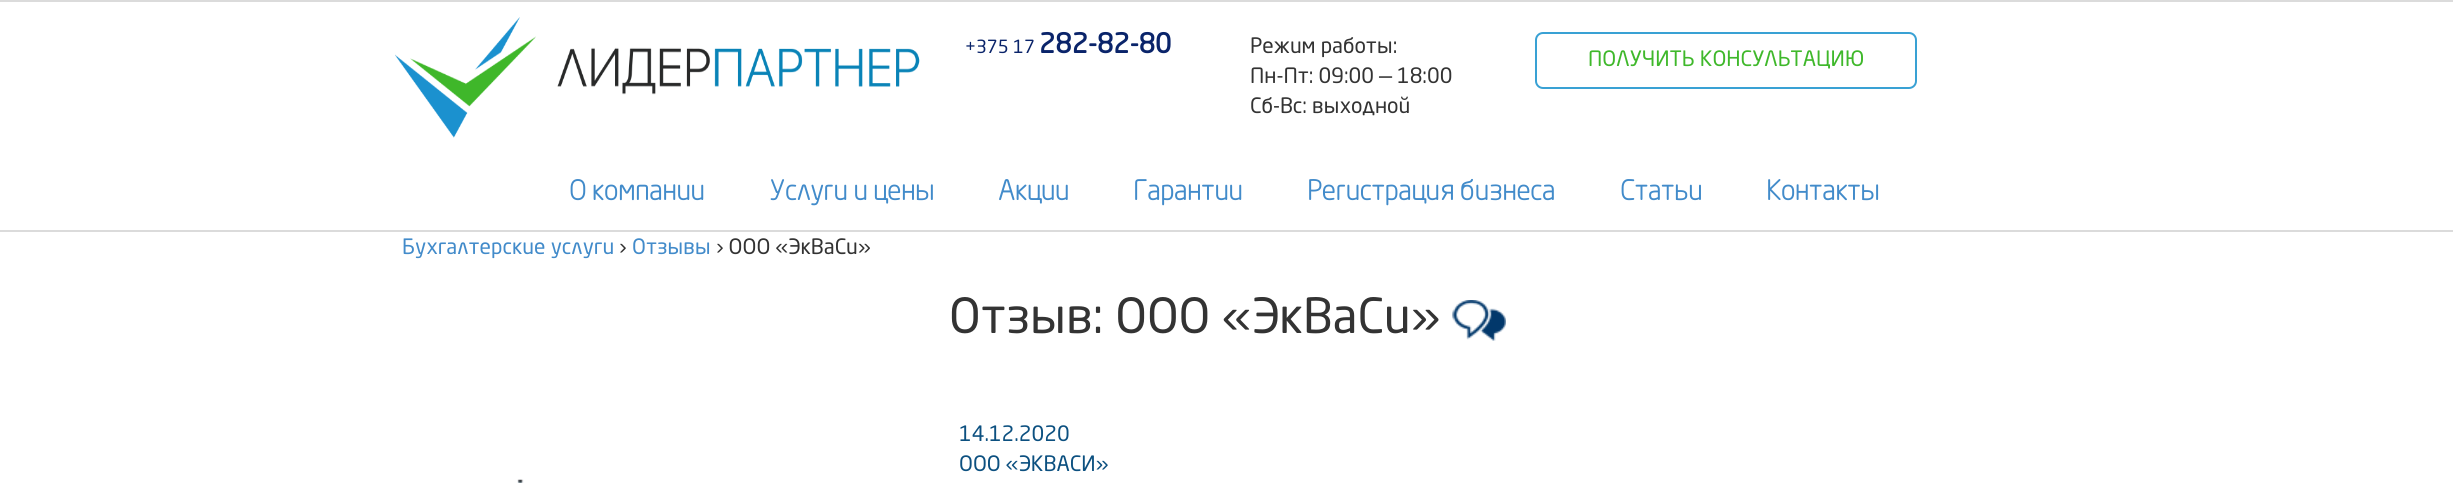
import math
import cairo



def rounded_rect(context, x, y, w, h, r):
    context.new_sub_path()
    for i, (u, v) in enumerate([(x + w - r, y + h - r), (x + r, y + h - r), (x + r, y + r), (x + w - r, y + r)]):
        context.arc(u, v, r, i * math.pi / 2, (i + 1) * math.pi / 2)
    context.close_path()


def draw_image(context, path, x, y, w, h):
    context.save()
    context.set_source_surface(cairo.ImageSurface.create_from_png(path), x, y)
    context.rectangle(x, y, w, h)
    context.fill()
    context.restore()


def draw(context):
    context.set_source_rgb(1, 1, 1)
    context.paint()
    context.set_source_rgb(219 / 255, 219 / 255, 219 / 255)
    context.rectangle(0, 0, 2453, 2)
    context.fill()
    context.rectangle(0, 230, 2453, 2)
    context.fill()
    draw_image(context, "images/1.png", 395, 17, 525, 121)
    rounded_rect(context, 1536, 33, 380, 55, 7)
    context.set_source_rgb(57 / 255, 161 / 255, 212 / 255)
    context.stroke()
    draw_image(context, "images/2.png", 1452, 300, 54, 41)
    draw_image(context, "images/3.png", 517, 479, 7, 4)
    context.select_font_face("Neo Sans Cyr")
    context.set_font_size(18)
    context.set_source_rgb(10 / 255, 36 / 255, 106 / 255)
    context.move_to(965, 53)
    context.show_text("+375 17")
    context.select_font_face("Neo Sans Cyr", cairo.FontSlant.NORMAL, cairo.FontWeight.BOLD)
    context.set_font_size(27)
    context.move_to(1039, 53)
    context.show_text("282-82-80")
    context.select_font_face("Neo Sans Cyr")
    context.set_font_size(21)
    context.set_source_rgb(51 / 255, 51 / 255, 51 / 255)
    context.move_to(1250, 53)
    context.show_text("Режим работы:")
    context.move_to(1250, 83)
    context.show_text("Пн-Пт: 09:00 — 18:00")
    context.move_to(1250, 113)
    context.show_text("Сб-Вс: выходной")
    context.set_source_rgb(63 / 255, 184 / 255, 43 / 255)
    context.move_to(1588, 66)
    context.show_text("ПОЛУЧИТЬ КОНСУЛЬТАЦИЮ")
    context.select_font_face("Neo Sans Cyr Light", cairo.FontSlant.NORMAL, cairo.FontWeight.BOLD)
    context.set_font_size(27)
    context.set_source_rgb(66 / 255, 139 / 255, 202 / 255)
    context.move_to(569, 200)
    context.show_text("О компании")
    context.move_to(769, 200)
    context.show_text("Услуги и цены")
    context.move_to(998, 200)
    context.show_text("Акции")
    context.move_to(1133, 200)
    context.show_text("Гарантии")
    context.move_to(1307, 200)
    context.show_text("Регистрация бизнеса")
    context.move_to(1620, 200)
    context.show_text("Статьи")
    context.move_to(1766, 200)
    context.show_text("Контакты")
    context.select_font_face("Neo Sans Cyr")
    context.set_font_size(21)
    context.move_to(402, 254)
    context.show_text("Бухгалтерские услуги")
    context.set_source_rgb(51 / 255, 51 / 255, 51 / 255)
    context.move_to(619, 254)
    context.show_text("›")
    context.set_source_rgb(66 / 255, 139 / 255, 202 / 255)
    context.move_to(632, 254)
    context.show_text("Отзывы")
    context.set_source_rgb(51 / 255, 51 / 255, 51 / 255)
    context.move_to(716, 254)
    context.show_text("› ООО «ЭкВаСи»")
    context.set_font_size(48)
    context.move_to(949, 333)
    context.show_text("Отзыв: ООО «ЭкВаСи»")
    context.set_font_size(21)
    context.set_source_rgb(12 / 255, 80 / 255, 128 / 255)
    context.move_to(959, 441)
    context.show_text("14.12.2020")
    context.move_to(959, 471)
    context.show_text("ООО «ЭКВАСИ»")


surface = cairo.ImageSurface(cairo.Format.RGB24, 2453, 483)
context = cairo.Context(surface)
options = cairo.FontOptions()
options.set_hint_metrics(cairo.HintMetrics.OFF)
options.set_hint_style(cairo.HintStyle.NONE)
context.set_font_options(options)
context.set_miter_limit(4)
draw(context)
surface.write_to_png("out.png")
